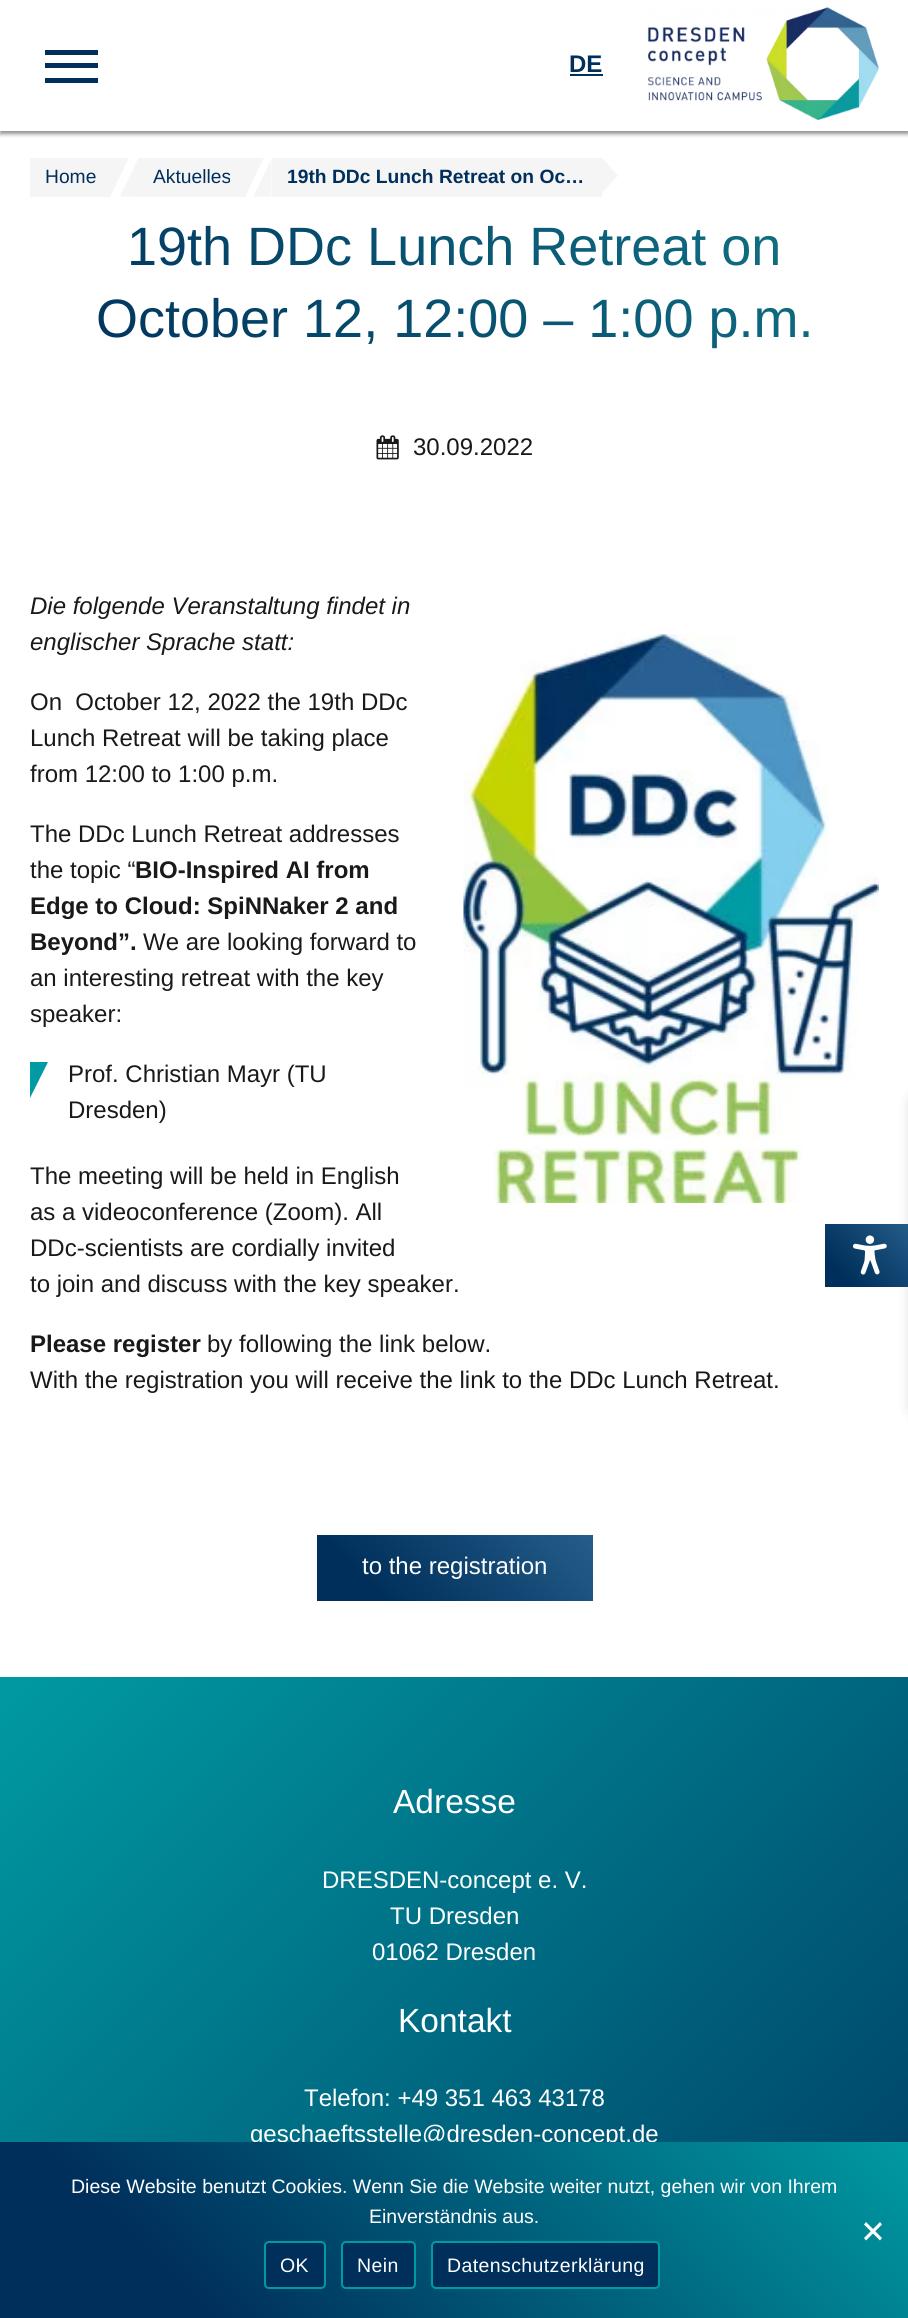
import math
import cairo



def draw_spaced(context, x, y, s, letter, word):
    context.move_to(x, y)
    for ch in s:
        context.show_text(ch)
        context.rel_move_to(letter + word * (ch == ' '), 0)


def rounded_rect(context, x, y, w, h, r):
    context.new_sub_path()
    for i, (u, v) in enumerate([(x + w - r, y + h - r), (x + r, y + h - r), (x + r, y + r), (x + w - r, y + r)]):
        context.arc(u, v, r, i * math.pi / 2, (i + 1) * math.pi / 2)
    context.close_path()


def draw_shadow(context, x, y, w, h, r, blur, alpha):
    context.push_group_with_content(cairo.Content.ALPHA)
    context.set_operator(cairo.Operator.SOURCE)
    for i in range(15, -16, -2):
        e = blur * i / 6
        if min(w, h) + 2 * e > 0:
            context.set_source_rgba(0, 0, 0, alpha * math.erfc((i - 1) / 8.5) / 2)
            rounded_rect(context, x - e, y - e, w + 2 * e, h + 2 * e, max(0, min(r + e + blur * .6, min(w, h) / 2 + e)))
            context.fill()
    context.mask(context.pop_group())


def draw_image(context, path, x, y, w, h):
    context.save()
    context.set_source_surface(cairo.ImageSurface.create_from_png(path), x, y)
    context.rectangle(x, y, w, h)
    context.fill()
    context.restore()


def draw(context):
    context.set_source_rgb(1, 1, 1)
    context.paint()
    context.set_source_rgb(0, 0, 0)
    draw_shadow(context, 0, 3, 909, 131, 0, 2, 0.44)
    context.set_source_rgb(1, 1, 1)
    context.rectangle(0, 0, 908, 131)
    context.fill()
    context.set_source_rgb(0, 47 / 255, 91 / 255)
    context.rectangle(45, 50, 53, 5)
    context.fill()
    context.rectangle(45, 63, 53, 5)
    context.fill()
    context.rectangle(45, 78, 53, 5)
    context.fill()
    context.rectangle(570, 74, 33, 2)
    context.fill()
    draw_image(context, "images/1.png", 647, 7, 232, 113)
    context.set_source_rgb(245 / 255, 245 / 255, 245 / 255)
    context.rectangle(30, 158, 81, 39)
    context.fill()
    context.save()
    context.rectangle(30, 158, 849, 46)
    context.clip()
    context.new_path()
    context.move_to(111, 157.5)
    context.line_to(129, 157.5)
    context.line_to(111, 195)
    context.close_path()
    context.fill()
    context.restore()
    context.rectangle(138, 158, 108, 39)
    context.fill()
    context.new_path()
    context.move_to(138, 159)
    context.line_to(138, 196.5)
    context.line_to(120, 196.5)
    context.close_path()
    context.fill()
    context.save()
    context.rectangle(30, 158, 849, 46)
    context.clip()
    context.new_path()
    context.move_to(246, 157.5)
    context.line_to(264, 157.5)
    context.line_to(246, 195)
    context.close_path()
    context.fill()
    context.restore()
    context.rectangle(272, 158, 330, 39)
    context.fill()
    context.new_path()
    context.move_to(271.5, 159)
    context.line_to(271.5, 196.5)
    context.line_to(253.5, 196.5)
    context.close_path()
    context.fill()
    context.new_path()
    context.move_to(601.5, 193.5)
    context.line_to(601.5, 157.5)
    context.line_to(618, 175.5)
    context.close_path()
    context.fill()
    draw_image(context, "images/2.png", 376, 435, 23, 25)
    draw_image(context, "images/3.png", 463, 634, 416, 569)
    context.set_source_rgb(0, 154 / 255, 162 / 255)
    context.new_path()
    context.move_to(30, 1062)
    context.line_to(48, 1062)
    context.line_to(30, 1098)
    context.close_path()
    context.fill()
    gradient = cairo.LinearGradient(369, 1653, 540, 1482)
    gradient.add_color_stop_rgba(0.2, 0, 47 / 255, 91 / 255, 1)
    gradient.add_color_stop_rgba(1, 37 / 255, 94 / 255, 138 / 255, 1)
    context.set_source(gradient)
    context.rectangle(317, 1535, 276, 66)
    context.fill()
    context.set_source_rgb(0, 0, 0)
    draw_shadow(context, 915, 1095, 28, 321, 12, 7.5, 0.35)
    gradient = cairo.LinearGradient(831, 1294, 908, 1218)
    gradient.add_color_stop_rgba(0.2, 0, 47 / 255, 91 / 255, 1)
    gradient.add_color_stop_rgba(1, 37 / 255, 94 / 255, 138 / 255, 1)
    context.set_source(gradient)
    context.rectangle(825, 1224, 83, 63)
    context.fill()
    draw_image(context, "images/4.png", 853, 1235, 34, 40)
    gradient = cairo.LinearGradient(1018, 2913, -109, 1786)
    gradient.add_color_stop_rgba(0.2, 0, 47 / 255, 91 / 255, 1)
    gradient.add_color_stop_rgba(1, 0, 154 / 255, 162 / 255, 1)
    context.set_source(gradient)
    context.rectangle(0, 1677, 908, 465)
    context.fill()
    context.select_font_face("Liberation Sans", cairo.FontSlant.NORMAL, cairo.FontWeight.BOLD)
    context.set_font_size(24)
    context.set_source_rgb(0, 47 / 255, 91 / 255)
    context.move_to(569, 72)
    context.show_text("DE")
    context.select_font_face("Liberation Sans")
    context.set_font_size(19.25)
    context.move_to(45, 183)
    context.show_text("Home")
    context.move_to(153, 183)
    context.show_text("Aktuelles")
    context.select_font_face("Liberation Sans", cairo.FontSlant.NORMAL, cairo.FontWeight.BOLD)
    context.move_to(287, 183)
    context.show_text("19th DDc Lunch Retreat on Oc…")
    context.select_font_face("Liberation Sans")
    context.set_font_size(54)
    gradient = cairo.LinearGradient(206, 531, 703, 35)
    gradient.add_color_stop_rgba(0, 0, 47 / 255, 91 / 255, 1)
    gradient.add_color_stop_rgba(1, 17 / 255, 119 / 255, 135 / 255, 1)
    context.set_source(gradient)
    context.move_to(127, 265)
    context.show_text("19th DDc Lunch Retreat on")
    context.move_to(96, 337)
    context.show_text("October 12, 12:00 – 1:00 p.m.")
    context.set_font_size(24)
    context.set_source_rgb(25 / 255, 25 / 255, 25 / 255)
    context.move_to(413, 455)
    context.show_text("30.09.2022")
    context.select_font_face("Liberation Sans", cairo.FontSlant.ITALIC)
    context.move_to(30, 614)
    context.show_text("Die folgende Veranstaltung findet in")
    context.move_to(30, 650)
    context.show_text("englischer Sprache statt:")
    context.select_font_face("Liberation Sans")
    context.move_to(30, 710)
    context.show_text("On  October 12, 2022 the 19th DDc")
    context.move_to(30, 746)
    context.show_text("Lunch Retreat will be taking place")
    context.move_to(30, 782)
    context.show_text("from 12:00 to 1:00 p.m.")
    context.move_to(30, 842)
    context.show_text("The DDc Lunch Retreat addresses")
    context.move_to(30, 878)
    context.show_text("the topic “")
    context.select_font_face("Liberation Sans", cairo.FontSlant.NORMAL, cairo.FontWeight.BOLD)
    context.move_to(135, 878)
    context.show_text("BIO-Inspired AI from")
    context.move_to(30, 914)
    context.show_text("Edge to Cloud: SpiNNaker 2 and")
    context.move_to(30, 950)
    context.show_text("Beyond”.")
    context.select_font_face("Liberation Sans")
    context.move_to(143, 950)
    context.show_text("We are looking forward to")
    context.move_to(30, 986)
    context.show_text("an interesting retreat with the key")
    context.move_to(30, 1022)
    context.show_text("speaker:")
    context.move_to(68, 1082)
    context.show_text("Prof. Christian Mayr (TU")
    context.move_to(68, 1118)
    context.show_text("Dresden)")
    context.move_to(30, 1184)
    context.show_text("The meeting will be held in English")
    context.move_to(30, 1220)
    context.show_text("as a videoconference (Zoom). All")
    context.move_to(30, 1256)
    context.show_text("DDc-scientists are cordially invited")
    context.move_to(30, 1292)
    context.show_text("to join and discuss with the key speaker.")
    context.select_font_face("Liberation Sans", cairo.FontSlant.NORMAL, cairo.FontWeight.BOLD)
    context.move_to(30, 1352)
    context.show_text("Please register")
    context.select_font_face("Liberation Sans")
    context.move_to(207, 1352)
    context.show_text("by following the link below.")
    context.move_to(30, 1388)
    context.show_text("With the registration you will receive the link to the DDc Lunch Retreat.")
    context.set_source_rgb(1, 1, 1)
    context.move_to(362, 1574)
    context.show_text("to the registration")
    context.set_font_size(33.5)
    context.move_to(393, 1813)
    context.show_text("Adresse")
    context.set_font_size(24)
    context.move_to(322, 1888)
    context.show_text("DRESDEN-concept e. V.")
    context.move_to(390, 1924)
    context.show_text("TU Dresden")
    context.move_to(372, 1960)
    context.show_text("01062 Dresden")
    context.set_font_size(33.5)
    context.move_to(398, 2032)
    context.show_text("Kontakt")
    context.set_font_size(24)
    context.move_to(304, 2106)
    context.show_text("Telefon: +49 351 463 43178")
    context.move_to(250, 2142)
    context.show_text("geschaeftsstelle@dresden-concept.de")
    gradient = cairo.LinearGradient(183, 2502, 726, 1959)
    gradient.add_color_stop_rgba(0.2, 0, 47 / 255, 91 / 255, 1)
    gradient.add_color_stop_rgba(1, 0, 154 / 255, 162 / 255, 1)
    context.set_source(gradient)
    context.rectangle(0, 2142, 908, 176)
    context.fill()
    context.set_font_size(19.5)
    context.set_source_rgb(1, 1, 1)
    context.move_to(71, 2193)
    context.show_text("Diese Website benutzt Cookies. Wenn Sie die Website weiter nutzt, gehen wir von Ihrem")
    context.move_to(369, 2223)
    context.show_text("Einverständnis aus.")
    context.new_path()
    context.move_to(880, 2222)
    context.line_to(882, 2224.5)
    context.line_to(866, 2240.5)
    context.line_to(864, 2238)
    context.close_path()
    context.fill()
    context.new_path()
    context.move_to(864, 2224.5)
    context.line_to(866, 2222)
    context.line_to(882, 2238)
    context.line_to(880, 2240.5)
    context.close_path()
    context.fill()
    context.set_source_rgb(0, 47 / 255, 91 / 255)
    rounded_rect(context, 265, 2242, 60, 46, 4)
    context.fill_preserve()
    context.set_source_rgb(0, 154 / 255, 162 / 255)
    context.stroke()
    context.set_source_rgb(1, 1, 1)
    draw_spaced(context, 280, 2272, "OK", 0.4, 0)
    context.set_source_rgb(0, 47 / 255, 91 / 255)
    rounded_rect(context, 342, 2242, 73, 46, 4)
    context.fill_preserve()
    context.set_source_rgb(0, 154 / 255, 162 / 255)
    context.stroke()
    context.set_source_rgb(1, 1, 1)
    draw_spaced(context, 357, 2272, "Nein", 0.4, 0)
    context.set_source_rgb(0, 47 / 255, 91 / 255)
    rounded_rect(context, 432, 2242, 227, 46, 4)
    context.fill_preserve()
    context.set_source_rgb(0, 154 / 255, 162 / 255)
    context.stroke()
    context.set_source_rgb(1, 1, 1)
    draw_spaced(context, 447, 2272, "Datenschutzerklärung", 0.4, 0)


surface = cairo.ImageSurface(cairo.Format.RGB24, 908, 2318)
context = cairo.Context(surface)
options = cairo.FontOptions()
options.set_hint_metrics(cairo.HintMetrics.OFF)
options.set_hint_style(cairo.HintStyle.NONE)
context.set_font_options(options)
context.set_miter_limit(4)
draw(context)
surface.write_to_png("out.png")
